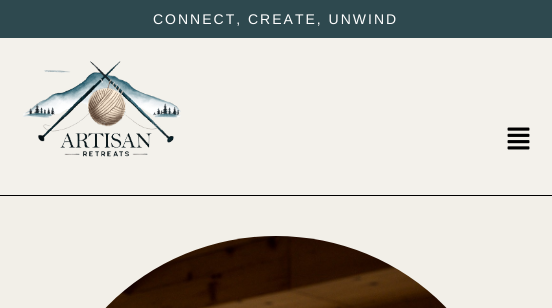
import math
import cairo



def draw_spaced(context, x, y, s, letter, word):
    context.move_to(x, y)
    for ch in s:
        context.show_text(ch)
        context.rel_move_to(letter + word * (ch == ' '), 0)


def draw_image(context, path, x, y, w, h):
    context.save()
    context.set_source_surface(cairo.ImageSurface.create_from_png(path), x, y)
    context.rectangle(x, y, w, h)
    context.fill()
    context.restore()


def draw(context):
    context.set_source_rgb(242 / 255, 239 / 255, 232 / 255)
    context.paint()
    context.set_source_rgb(46 / 255, 73 / 255, 79 / 255)
    context.rectangle(0, 0, 552, 38)
    context.fill()
    context.set_source_rgb(243 / 255, 241 / 255, 235 / 255)
    context.rectangle(0, 38, 552, 157)
    context.fill()
    context.set_source_rgb(0, 0, 0)
    context.rectangle(0, 195, 552, 1)
    context.fill()
    draw_image(context, "images/1.png", 23, 61, 158, 96)
    draw_image(context, "images/2.png", 507, 127, 23, 23)
    draw_image(context, "images/3.png", 105, 236, 342, 72)
    context.select_font_face("Liberation Sans")
    context.set_font_size(14)
    context.set_source_rgb(1, 1, 1)
    draw_spaced(context, 153, 24, "CONNECT, CREATE, UNWIND", 2, 0)


surface = cairo.ImageSurface(cairo.Format.RGB24, 552, 308)
context = cairo.Context(surface)
options = cairo.FontOptions()
options.set_hint_metrics(cairo.HintMetrics.OFF)
options.set_hint_style(cairo.HintStyle.NONE)
context.set_font_options(options)
context.set_miter_limit(4)
draw(context)
surface.write_to_png("out.png")
